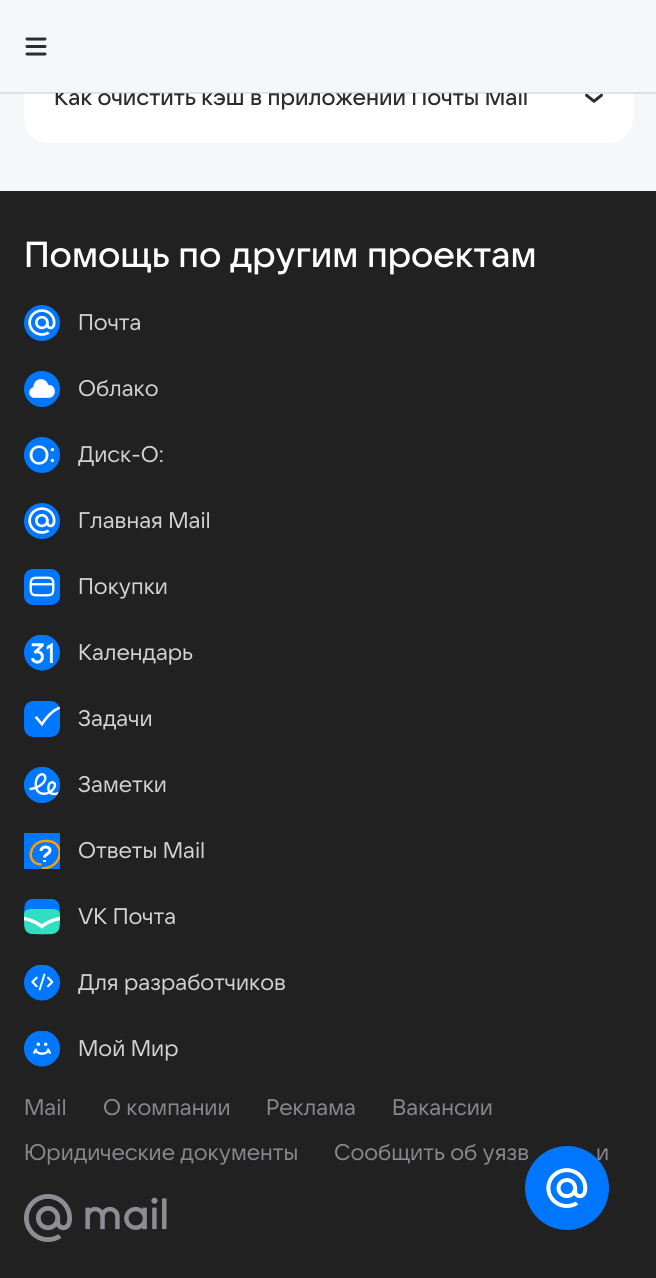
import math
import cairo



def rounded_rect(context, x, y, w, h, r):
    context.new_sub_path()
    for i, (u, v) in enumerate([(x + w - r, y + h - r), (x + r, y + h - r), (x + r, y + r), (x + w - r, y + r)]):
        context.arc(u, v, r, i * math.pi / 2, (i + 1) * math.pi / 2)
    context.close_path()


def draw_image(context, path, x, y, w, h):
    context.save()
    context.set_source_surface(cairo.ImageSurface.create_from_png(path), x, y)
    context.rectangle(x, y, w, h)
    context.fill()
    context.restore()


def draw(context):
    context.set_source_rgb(246 / 255, 247 / 255, 248 / 255)
    context.paint()
    context.set_source_rgb(1, 1, 1)
    rounded_rect(context, 24, -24, 609, 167, 24)
    context.fill()
    draw_image(context, "images/2.png", 585, 93, 18, 10)
    context.set_source_rgb(33 / 255, 33 / 255, 33 / 255)
    context.rectangle(0, 191, 656, 1087)
    context.fill()
    draw_image(context, "images/3.png", 24, 305, 36, 36)
    draw_image(context, "images/4.png", 24, 371, 36, 36)
    draw_image(context, "images/5.png", 24, 437, 36, 36)
    draw_image(context, "images/3.png", 24, 503, 36, 36)
    draw_image(context, "images/6.png", 24, 569, 36, 36)
    draw_image(context, "images/7.png", 24, 635, 36, 36)
    draw_image(context, "images/8.png", 24, 701, 36, 36)
    draw_image(context, "images/9.png", 24, 767, 36, 36)
    context.set_source_rgb(0, 119 / 255, 1)
    context.rectangle(24, 833, 36, 36)
    context.fill()
    context.save()
    context.rectangle(28, 838, 32, 31)
    context.clip()
    context.new_path()
    context.move_to(41.5, 868.5)
    context.curve_to(62.5, 868.5, 66.5, 842.5, 48, 841)
    context.curve_to(29, 839, 24, 864, 41.5, 864.5)
    context.set_source_rgb(1, 158 / 255, 0)
    context.set_line_width(2.5)
    context.stroke()
    context.restore()
    context.new_path()
    context.move_to(41, 851)
    context.curve_to(41, 845.5, 50, 846, 50, 850.5)
    context.curve_to(49.5, 854, 44.5, 854.5, 44.5, 857.5)
    context.set_source_rgb(1, 1, 1)
    context.set_line_width(3)
    context.stroke()
    context.rectangle(43, 860, 3, 2)
    context.fill()
    draw_image(context, "images/10.png", 24, 899, 36, 36)
    draw_image(context, "images/11.png", 24, 965, 36, 36)
    draw_image(context, "images/12.png", 24, 1031, 36, 36)
    draw_image(context, "images/13.png", 24, 1194, 143, 48)
    context.select_font_face("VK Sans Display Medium")
    context.set_font_size(22.5)
    context.set_source_rgb(44 / 255, 45 / 255, 46 / 255)
    context.move_to(54, 105)
    context.show_text("Как очистить кэш в приложении Почты Mail")
    context.set_source_rgb(246 / 255, 247 / 255, 248 / 255)
    context.rectangle(24, 0, 609, 93)
    context.fill()
    draw_image(context, "images/1.png", 25, 37, 22, 19)
    context.set_source_rgba(0, 0, 0, 0.1)
    context.rectangle(0, 92, 656, 2)
    context.fill()
    context.set_font_size(36)
    context.set_source_rgb(1, 1, 1)
    context.move_to(24, 267)
    context.show_text("Помощь по другим проектам")
    context.select_font_face("VK Sans Display")
    context.set_font_size(22.5)
    context.set_source_rgb(211 / 255, 211 / 255, 211 / 255)
    context.move_to(78, 330)
    context.show_text("Почта")
    context.move_to(78, 396)
    context.show_text("Облако")
    context.move_to(78, 462)
    context.show_text("Диск-О:")
    context.move_to(78, 528)
    context.show_text("Главная Mail")
    context.move_to(78, 594)
    context.show_text("Покупки")
    context.move_to(78, 660)
    context.show_text("Календарь")
    context.move_to(78, 726)
    context.show_text("Задачи")
    context.move_to(78, 792)
    context.show_text("Заметки")
    context.move_to(78, 858)
    context.show_text("Ответы Mail")
    context.move_to(78, 924)
    context.show_text("VK Почта")
    context.move_to(78, 990)
    context.show_text("Для разработчиков")
    context.move_to(78, 1056)
    context.show_text("Мой Мир")
    context.set_source_rgb(135 / 255, 137 / 255, 143 / 255)
    context.move_to(24, 1115)
    context.show_text("Mail")
    context.move_to(103, 1115)
    context.show_text("О компании")
    context.move_to(266, 1115)
    context.show_text("Реклама")
    context.move_to(392, 1115)
    context.show_text("Вакансии")
    context.move_to(24, 1160)
    context.show_text("Юридические документы")
    context.move_to(334, 1160)
    context.show_text("Сообщить об уязв")
    context.move_to(596, 1160)
    context.show_text("и")
    context.set_source_rgb(0, 118 / 255, 253 / 255)
    context.new_path()
    context.arc(567, 1188, 42, 0, 2 * math.pi)
    context.fill()
    draw_image(context, "images/14.png", 546, 1168, 42, 40)


surface = cairo.ImageSurface(cairo.Format.RGB24, 656, 1278)
context = cairo.Context(surface)
options = cairo.FontOptions()
options.set_hint_metrics(cairo.HintMetrics.OFF)
options.set_hint_style(cairo.HintStyle.NONE)
context.set_font_options(options)
context.set_miter_limit(4)
draw(context)
surface.write_to_png("out.png")
